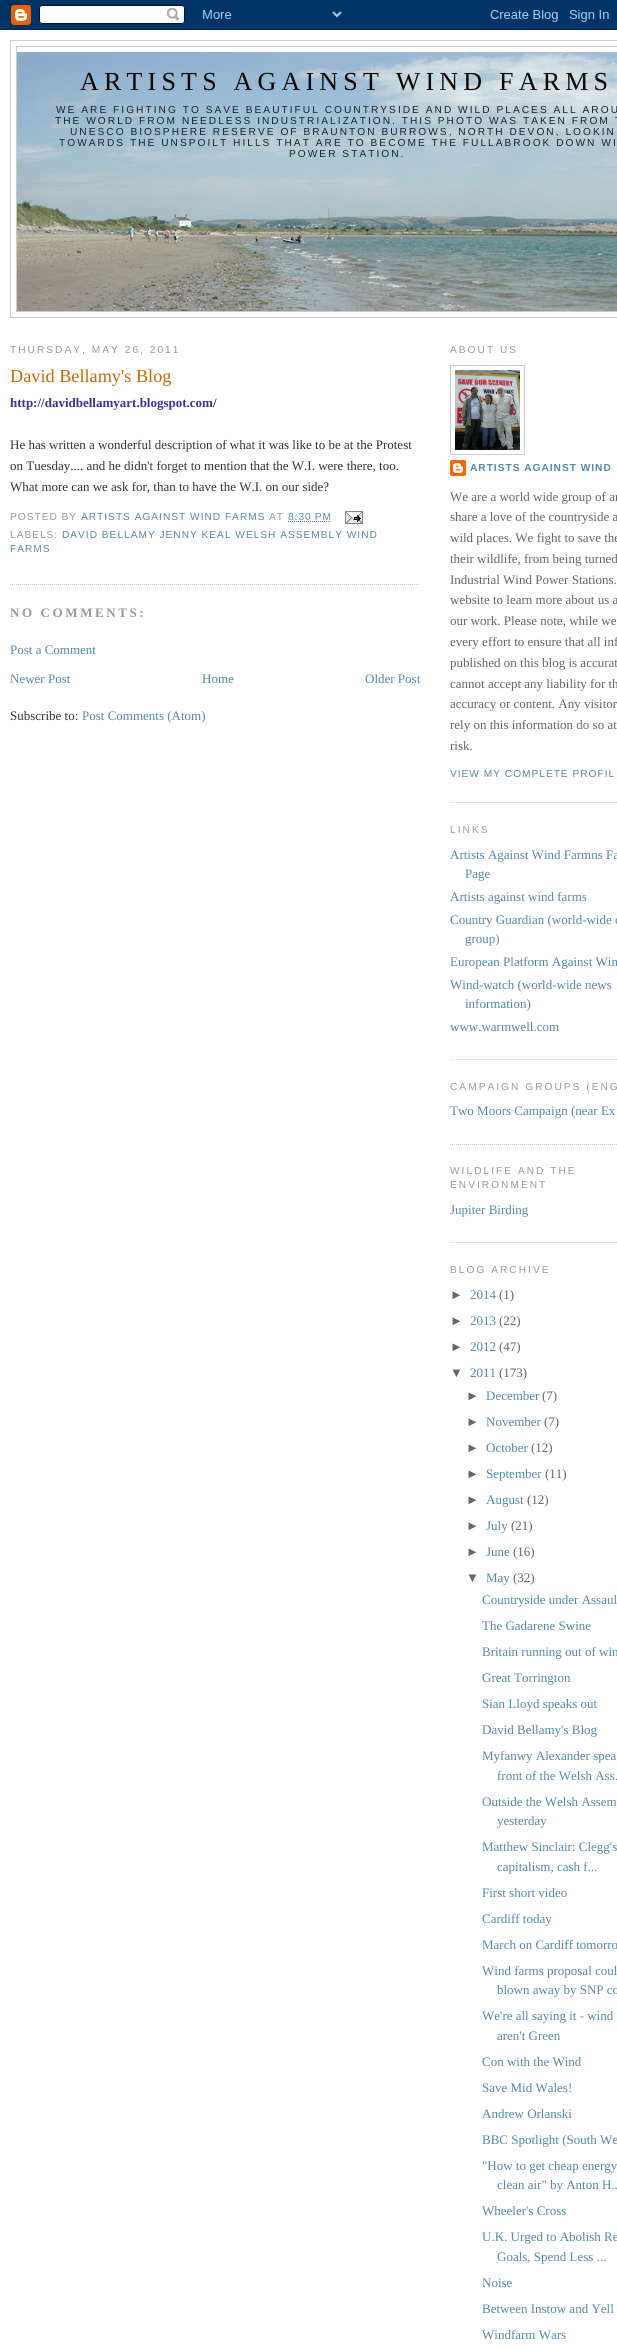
import math
import cairo



def draw_spaced(context, x, y, s, letter, word):
    context.move_to(x, y)
    for ch in s:
        context.show_text(ch)
        context.rel_move_to(letter + word * (ch == ' '), 0)


def draw_image(context, path, x, y, w, h):
    context.save()
    context.set_source_surface(cairo.ImageSurface.create_from_png(path), x, y)
    context.rectangle(x, y, w, h)
    context.fill()
    context.restore()


def draw(context):
    context.set_source_rgb(1, 1, 1)
    context.paint()
    draw_image(context, "images/1.png", 0, 0, 617, 30)
    context.rectangle(10.5, 40.5, 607, 277)
    context.set_source_rgb(204 / 255, 204 / 255, 204 / 255)
    context.set_line_width(1)
    context.stroke()
    context.rectangle(16.5, 46.5, 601, 265)
    context.stroke()
    draw_image(context, "images/2.png", 17, 52, 600, 259)
    context.new_path()
    context.move_to(10, 584.5)
    context.line_to(420, 584.5)
    context.set_dash([1, 1])
    context.stroke()
    context.new_path()
    context.move_to(288, 521.5)
    context.line_to(332, 521.5)
    context.set_source_rgb(85 / 255, 136 / 255, 170 / 255)
    context.stroke()
    draw_image(context, "images/3.png", 345, 511, 18, 13)
    context.new_path()
    context.move_to(450, 802.5)
    context.line_to(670, 802.5)
    context.set_source_rgb(204 / 255, 204 / 255, 204 / 255)
    context.stroke()
    context.rectangle(450.5, 365.5, 74, 89)
    context.set_dash([])
    context.stroke()
    draw_image(context, "images/4.png", 455, 370, 65, 80)
    draw_image(context, "images/5.png", 450, 460, 16, 16)
    context.new_path()
    context.move_to(450, 1059.5)
    context.line_to(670, 1059.5)
    context.set_dash([1, 1])
    context.stroke()
    context.new_path()
    context.move_to(450, 1144.5)
    context.line_to(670, 1144.5)
    context.stroke()
    context.new_path()
    context.move_to(450, 1242.5)
    context.line_to(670, 1242.5)
    context.stroke()
    context.select_font_face("Liberation Serif")
    context.set_font_size(26)
    context.set_source_rgb(13 / 255, 6 / 255, 0)
    draw_spaced(context, 80, 90, "ARTISTS AGAINST WIND FARMS", 5.2, 0)
    context.select_font_face("Liberation Sans")
    context.set_font_size(10.15)
    context.set_source_rgb(21 / 255, 34 / 255, 43 / 255)
    draw_spaced(context, 56, 113, "WE ARE FIGHTING TO SAVE BEAUTIFUL COUNTRYSIDE AND WILD PLACES ALL AROU", 2.03, 0)
    draw_spaced(context, 55, 124, "THE WORLD FROM NEEDLESS INDUSTRIALIZATION. THIS PHOTO WAS TAKEN FROM T", 2.03, 0)
    draw_spaced(context, 70, 135, "UNESCO BIOSPHERE RESERVE OF BRAUNTON BURROWS, NORTH DEVON, LOOKIN", 2.03, 0)
    draw_spaced(context, 59, 146, "TOWARDS THE UNSPOILT HILLS THAT ARE TO BECOME THE FULLABROOK DOWN WI", 2.03, 0)
    draw_spaced(context, 289, 157, "POWER STATION.", 2.03, 0)
    context.set_source_rgb(153 / 255, 153 / 255, 153 / 255)
    draw_spaced(context, 10, 353, "THURSDAY, MAY 26, 2011", 2.03, 0)
    context.select_font_face("Liberation Serif")
    context.set_font_size(18.25)
    context.set_source_rgb(204 / 255, 102 / 255, 0)
    context.move_to(10, 382)
    context.show_text("David Bellamy's Blog")
    context.select_font_face("Liberation Serif", cairo.FontSlant.NORMAL, cairo.FontWeight.BOLD)
    context.set_font_size(13)
    context.set_source_rgb(51 / 255, 51 / 255, 153 / 255)
    context.move_to(10, 407)
    context.show_text("http://davidbellamyart.blogspot.com/")
    context.select_font_face("Liberation Serif")
    context.set_source_rgb(51 / 255, 51 / 255, 51 / 255)
    context.move_to(10, 449)
    context.show_text("He has written a wonderful description of what it was like to be at the Protest")
    context.move_to(10, 470)
    context.show_text("on Tuesday.... and he didn't forget to mention that the W.I. were there, too.")
    context.move_to(10, 491)
    context.show_text("What more can we ask for, than to have the W.I. on our side?")
    context.select_font_face("Liberation Sans")
    context.set_font_size(10.15)
    context.set_source_rgb(153 / 255, 153 / 255, 153 / 255)
    draw_spaced(context, 10, 520, "POSTED BY", 1, 0)
    context.set_source_rgb(85 / 255, 136 / 255, 170 / 255)
    draw_spaced(context, 81, 520, "ARTISTS AGAINST WIND FARMS", 1, 0)
    context.set_source_rgb(153 / 255, 153 / 255, 153 / 255)
    draw_spaced(context, 269, 520, "AT", 1, 0)
    context.set_source_rgb(85 / 255, 136 / 255, 170 / 255)
    draw_spaced(context, 288, 520, "8:30 PM", 1, 0)
    context.set_source_rgb(153 / 255, 153 / 255, 153 / 255)
    draw_spaced(context, 10, 538, "LABELS:", 1, 0)
    context.set_source_rgb(85 / 255, 136 / 255, 170 / 255)
    draw_spaced(context, 62, 538, "DAVID BELLAMY JENNY KEAL WELSH ASSEMBLY WIND", 1, 0)
    draw_spaced(context, 10, 552, "FARMS", 1, 0)
    context.select_font_face("Liberation Serif", cairo.FontSlant.NORMAL, cairo.FontWeight.BOLD)
    context.set_font_size(13)
    context.set_source_rgb(153 / 255, 153 / 255, 153 / 255)
    draw_spaced(context, 10, 617, "NO COMMENTS:", 2.6, 0)
    context.select_font_face("Liberation Serif")
    context.set_source_rgb(85 / 255, 136 / 255, 170 / 255)
    context.move_to(10, 654)
    context.show_text("Post a Comment")
    context.move_to(10, 683)
    context.show_text("Newer Post")
    context.move_to(202, 683)
    context.show_text("Home")
    context.move_to(365, 683)
    context.show_text("Older Post")
    context.set_source_rgb(51 / 255, 51 / 255, 51 / 255)
    context.move_to(10, 720)
    context.show_text("Subscribe to:")
    context.set_source_rgb(85 / 255, 136 / 255, 170 / 255)
    context.move_to(82, 720)
    context.show_text("Post Comments (Atom)")
    context.select_font_face("Liberation Sans")
    context.set_font_size(10.15)
    context.set_source_rgb(153 / 255, 153 / 255, 153 / 255)
    draw_spaced(context, 450, 353, "ABOUT US", 2.03, 0)
    context.select_font_face("Liberation Sans", cairo.FontSlant.NORMAL, cairo.FontWeight.BOLD)
    context.set_source_rgb(85 / 255, 136 / 255, 170 / 255)
    draw_spaced(context, 470, 471, "ARTISTS AGAINST WIND", 1, 0)
    context.select_font_face("Liberation Serif")
    context.set_font_size(13)
    context.set_source_rgb(102 / 255, 102 / 255, 102 / 255)
    context.move_to(450, 501)
    context.show_text("We are a world wide group of ar")
    context.move_to(450, 521)
    context.show_text("share a love of the countryside a")
    context.move_to(450, 542)
    context.show_text("wild places. We fight to save the")
    context.move_to(450, 563)
    context.show_text("their wildlife, from being turned")
    context.move_to(450, 584)
    context.show_text("Industrial Wind Power Stations.")
    context.move_to(450, 604)
    context.show_text("website to learn more about us a")
    context.move_to(450, 625)
    context.show_text("our work. Please note, while we")
    context.move_to(450, 646)
    context.show_text("every effort to ensure that all inf")
    context.move_to(450, 667)
    context.show_text("published on this blog is accurat")
    context.move_to(450, 688)
    context.show_text("cannot accept any liability for th")
    context.move_to(450, 708)
    context.show_text("accuracy or content. Any visitor")
    context.move_to(450, 729)
    context.show_text("rely on this information do so at")
    context.move_to(450, 750)
    context.show_text("risk.")
    context.select_font_face("Liberation Sans")
    context.set_font_size(10.15)
    context.set_source_rgb(85 / 255, 136 / 255, 170 / 255)
    draw_spaced(context, 450, 777, "VIEW MY COMPLETE PROFIL", 1, 0)
    context.set_source_rgb(153 / 255, 153 / 255, 153 / 255)
    draw_spaced(context, 450, 833, "LINKS", 2.03, 0)
    context.select_font_face("Liberation Serif")
    context.set_font_size(13)
    context.set_source_rgb(85 / 255, 136 / 255, 170 / 255)
    context.move_to(450, 859)
    context.show_text("Artists Against Wind Farmns Fa")
    context.move_to(465, 878)
    context.show_text("Page")
    context.move_to(450, 901)
    context.show_text("Artists against wind farms")
    context.move_to(450, 924)
    context.show_text("Country Guardian (world-wide c")
    context.move_to(465, 943)
    context.show_text("group)")
    context.move_to(450, 966)
    context.show_text("European Platform Against Win")
    context.move_to(450, 989)
    context.show_text("Wind-watch (world-wide news")
    context.move_to(465, 1008)
    context.show_text("information)")
    context.move_to(450, 1031)
    context.show_text("www.warmwell.com")
    context.select_font_face("Liberation Sans")
    context.set_font_size(10.15)
    context.set_source_rgb(153 / 255, 153 / 255, 153 / 255)
    draw_spaced(context, 450, 1090, "CAMPAIGN GROUPS (ENG", 2.03, 0)
    context.select_font_face("Liberation Serif")
    context.set_font_size(13)
    context.set_source_rgb(85 / 255, 136 / 255, 170 / 255)
    context.move_to(450, 1115)
    context.show_text("Two Moors Campaign (near Ex")
    context.select_font_face("Liberation Sans")
    context.set_font_size(10.15)
    context.set_source_rgb(153 / 255, 153 / 255, 153 / 255)
    draw_spaced(context, 450, 1174, "WILDLIFE AND THE", 2.03, 0)
    draw_spaced(context, 450, 1188, "ENVIRONMENT", 2.03, 0)
    context.select_font_face("Liberation Serif")
    context.set_font_size(13)
    context.set_source_rgb(85 / 255, 136 / 255, 170 / 255)
    context.move_to(450, 1214)
    context.show_text("Jupiter Birding")
    context.select_font_face("Liberation Sans")
    context.set_font_size(10.15)
    context.set_source_rgb(153 / 255, 153 / 255, 153 / 255)
    draw_spaced(context, 450, 1273, "BLOG ARCHIVE", 2.03, 0)
    context.set_font_size(13)
    context.set_source_rgb(102 / 255, 102 / 255, 102 / 255)
    context.move_to(450, 1299)
    context.show_text("►")
    context.select_font_face("Liberation Serif")
    context.set_source_rgb(85 / 255, 136 / 255, 170 / 255)
    context.move_to(470, 1299)
    context.show_text("2014")
    context.set_source_rgb(102 / 255, 102 / 255, 102 / 255)
    context.move_to(499, 1299)
    context.show_text("(1)")
    context.select_font_face("Liberation Sans")
    context.move_to(450, 1325)
    context.show_text("►")
    context.select_font_face("Liberation Serif")
    context.set_source_rgb(85 / 255, 136 / 255, 170 / 255)
    context.move_to(470, 1325)
    context.show_text("2013")
    context.set_source_rgb(102 / 255, 102 / 255, 102 / 255)
    context.move_to(499, 1325)
    context.show_text("(22)")
    context.select_font_face("Liberation Sans")
    context.move_to(450, 1351)
    context.show_text("►")
    context.select_font_face("Liberation Serif")
    context.set_source_rgb(85 / 255, 136 / 255, 170 / 255)
    context.move_to(470, 1351)
    context.show_text("2012")
    context.set_source_rgb(102 / 255, 102 / 255, 102 / 255)
    context.move_to(499, 1351)
    context.show_text("(47)")
    context.select_font_face("Liberation Sans")
    context.move_to(450, 1377)
    context.show_text("▼")
    context.select_font_face("Liberation Serif")
    context.set_source_rgb(85 / 255, 136 / 255, 170 / 255)
    context.move_to(470, 1377)
    context.show_text("2011")
    context.set_source_rgb(102 / 255, 102 / 255, 102 / 255)
    context.move_to(499, 1377)
    context.show_text("(173)")
    context.select_font_face("Liberation Sans")
    context.move_to(466, 1400)
    context.show_text("►")
    context.select_font_face("Liberation Serif")
    context.set_source_rgb(85 / 255, 136 / 255, 170 / 255)
    context.move_to(486, 1400)
    context.show_text("December")
    context.set_source_rgb(102 / 255, 102 / 255, 102 / 255)
    context.move_to(542, 1400)
    context.show_text("(7)")
    context.select_font_face("Liberation Sans")
    context.move_to(466, 1426)
    context.show_text("►")
    context.select_font_face("Liberation Serif")
    context.set_source_rgb(85 / 255, 136 / 255, 170 / 255)
    context.move_to(486, 1426)
    context.show_text("November")
    context.set_source_rgb(102 / 255, 102 / 255, 102 / 255)
    context.move_to(544, 1426)
    context.show_text("(7)")
    context.select_font_face("Liberation Sans")
    context.move_to(466, 1452)
    context.show_text("►")
    context.select_font_face("Liberation Serif")
    context.set_source_rgb(85 / 255, 136 / 255, 170 / 255)
    context.move_to(486, 1452)
    context.show_text("October")
    context.set_source_rgb(102 / 255, 102 / 255, 102 / 255)
    context.move_to(531, 1452)
    context.show_text("(12)")
    context.select_font_face("Liberation Sans")
    context.move_to(466, 1478)
    context.show_text("►")
    context.select_font_face("Liberation Serif")
    context.set_source_rgb(85 / 255, 136 / 255, 170 / 255)
    context.move_to(486, 1478)
    context.show_text("September")
    context.set_source_rgb(102 / 255, 102 / 255, 102 / 255)
    context.move_to(545, 1478)
    context.show_text("(11)")
    context.select_font_face("Liberation Sans")
    context.move_to(466, 1504)
    context.show_text("►")
    context.select_font_face("Liberation Serif")
    context.set_source_rgb(85 / 255, 136 / 255, 170 / 255)
    context.move_to(486, 1504)
    context.show_text("August")
    context.set_source_rgb(102 / 255, 102 / 255, 102 / 255)
    context.move_to(527, 1504)
    context.show_text("(12)")
    context.select_font_face("Liberation Sans")
    context.move_to(466, 1530)
    context.show_text("►")
    context.select_font_face("Liberation Serif")
    context.set_source_rgb(85 / 255, 136 / 255, 170 / 255)
    context.move_to(486, 1530)
    context.show_text("July")
    context.set_source_rgb(102 / 255, 102 / 255, 102 / 255)
    context.move_to(511, 1530)
    context.show_text("(21)")
    context.select_font_face("Liberation Sans")
    context.move_to(466, 1556)
    context.show_text("►")
    context.select_font_face("Liberation Serif")
    context.set_source_rgb(85 / 255, 136 / 255, 170 / 255)
    context.move_to(486, 1556)
    context.show_text("June")
    context.set_source_rgb(102 / 255, 102 / 255, 102 / 255)
    context.move_to(513, 1556)
    context.show_text("(16)")
    context.select_font_face("Liberation Sans")
    context.move_to(466, 1582)
    context.show_text("▼")
    context.select_font_face("Liberation Serif")
    context.set_source_rgb(85 / 255, 136 / 255, 170 / 255)
    context.move_to(486, 1582)
    context.show_text("May")
    context.set_source_rgb(102 / 255, 102 / 255, 102 / 255)
    context.move_to(513, 1582)
    context.show_text("(32)")
    context.set_source_rgb(85 / 255, 136 / 255, 170 / 255)
    context.move_to(482, 1604)
    context.show_text("Countryside under Assaul")
    context.move_to(482, 1630)
    context.show_text("The Gadarene Swine")
    context.move_to(482, 1656)
    context.show_text("Britain running out of win")
    context.move_to(482, 1682)
    context.show_text("Great Torrington")
    context.move_to(482, 1708)
    context.show_text("Sian Lloyd speaks out")
    context.move_to(482, 1734)
    context.show_text("David Bellamy's Blog")
    context.move_to(482, 1760)
    context.show_text("Myfanwy Alexander spea")
    context.move_to(497, 1780)
    context.show_text("front of the Welsh Ass.")
    context.move_to(482, 1806)
    context.show_text("Outside the Welsh Assem")
    context.move_to(497, 1825)
    context.show_text("yesterday")
    context.move_to(482, 1851)
    context.show_text("Matthew Sinclair: Clegg's")
    context.move_to(497, 1871)
    context.show_text("capitalism, cash f...")
    context.move_to(482, 1897)
    context.show_text("First short video")
    context.move_to(482, 1923)
    context.show_text("Cardiff today")
    context.move_to(482, 1949)
    context.show_text("March on Cardiff tomorro")
    context.move_to(482, 1975)
    context.show_text("Wind farms proposal coul")
    context.move_to(497, 1994)
    context.show_text("blown away by SNP co")
    context.move_to(482, 2020)
    context.show_text("We're all saying it - wind")
    context.move_to(497, 2040)
    context.show_text("aren't Green")
    context.move_to(482, 2066)
    context.show_text("Con with the Wind")
    context.move_to(482, 2092)
    context.show_text("Save Mid Wales!")
    context.move_to(482, 2118)
    context.show_text("Andrew Orlanski")
    context.move_to(482, 2144)
    context.show_text("BBC Spotlight (South We")
    context.move_to(482, 2170)
    context.show_text("\"How to get cheap energy")
    context.move_to(497, 2189)
    context.show_text("clean air\" by Anton H..")
    context.move_to(482, 2215)
    context.show_text("Wheeler's Cross")
    context.move_to(482, 2241)
    context.show_text("U.K. Urged to Abolish Re")
    context.move_to(497, 2261)
    context.show_text("Goals, Spend Less ...")
    context.move_to(482, 2287)
    context.show_text("Noise")
    context.move_to(482, 2313)
    context.show_text("Between Instow and Yell")
    context.move_to(482, 2339)
    context.show_text("Windfarm Wars")


surface = cairo.ImageSurface(cairo.Format.RGB24, 617, 2349)
context = cairo.Context(surface)
options = cairo.FontOptions()
options.set_hint_metrics(cairo.HintMetrics.OFF)
options.set_hint_style(cairo.HintStyle.NONE)
context.set_font_options(options)
context.set_miter_limit(4)
draw(context)
surface.write_to_png("out.png")
